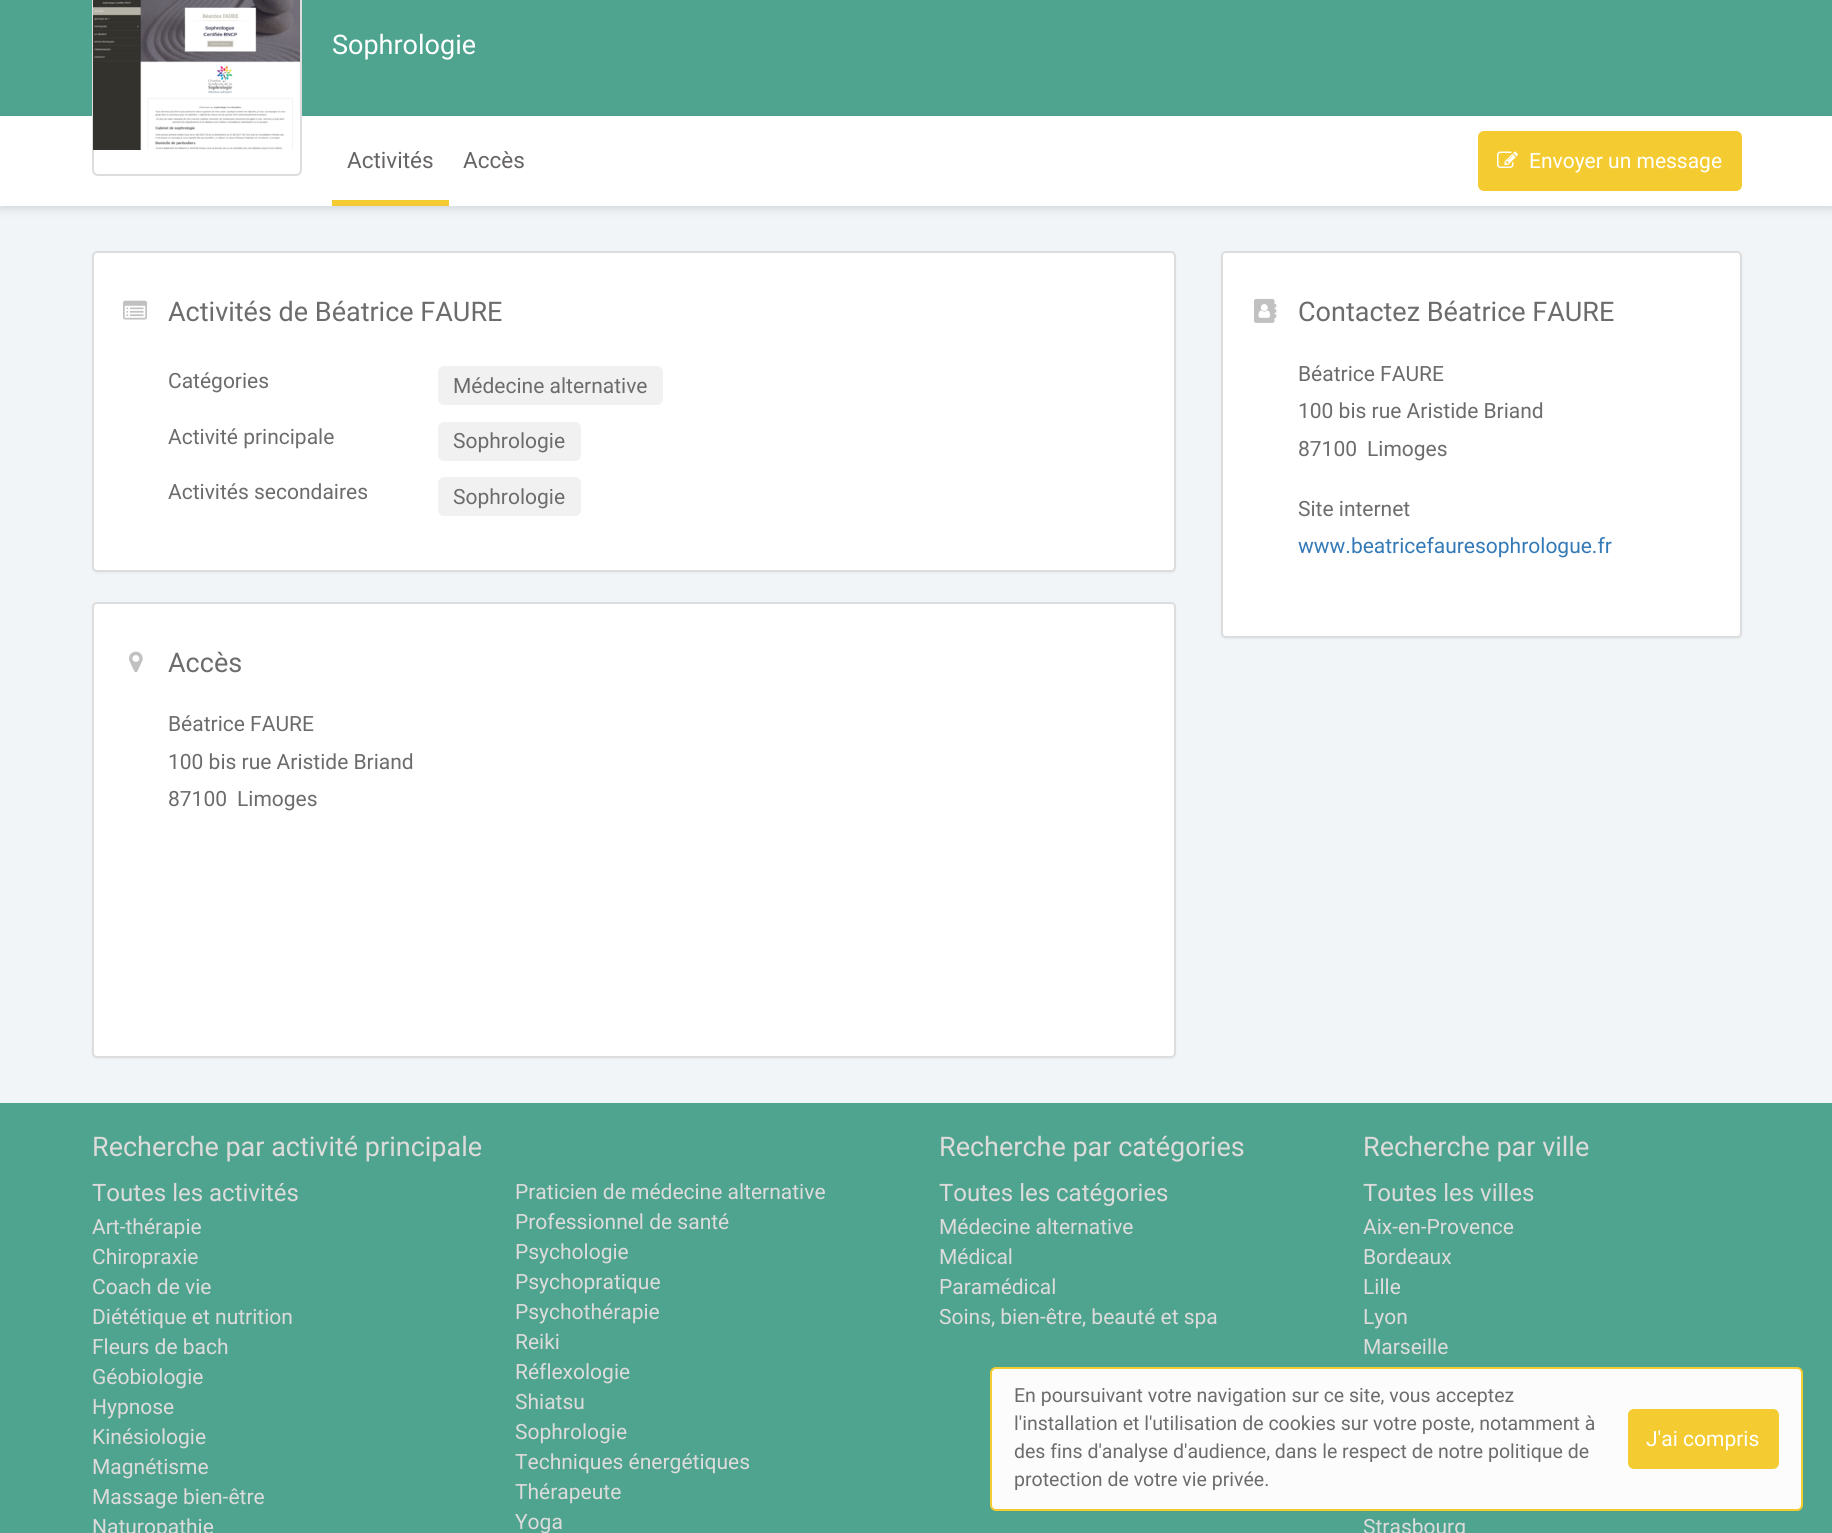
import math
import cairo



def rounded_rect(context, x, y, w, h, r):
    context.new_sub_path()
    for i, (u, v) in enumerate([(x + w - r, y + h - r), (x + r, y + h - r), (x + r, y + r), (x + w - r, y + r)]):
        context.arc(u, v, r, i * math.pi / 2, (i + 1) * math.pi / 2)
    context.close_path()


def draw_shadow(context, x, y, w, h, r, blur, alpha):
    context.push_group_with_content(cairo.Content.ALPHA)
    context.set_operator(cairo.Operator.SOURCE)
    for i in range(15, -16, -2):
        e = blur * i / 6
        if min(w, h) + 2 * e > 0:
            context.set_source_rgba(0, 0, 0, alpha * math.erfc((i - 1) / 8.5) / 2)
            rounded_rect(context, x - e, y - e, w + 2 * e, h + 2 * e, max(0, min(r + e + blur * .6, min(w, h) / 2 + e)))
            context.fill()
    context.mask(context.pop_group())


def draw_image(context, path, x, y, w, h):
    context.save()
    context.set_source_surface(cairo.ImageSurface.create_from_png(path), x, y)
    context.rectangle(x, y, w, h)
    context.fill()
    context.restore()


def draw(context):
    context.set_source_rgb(242 / 255, 245 / 255, 247 / 255)
    context.paint()
    context.set_source_rgb(78 / 255, 164 / 255, 143 / 255)
    context.rectangle(0, 0, 1832, 116)
    context.fill()
    context.set_source_rgb(67 / 255, 95 / 255, 113 / 255)
    draw_shadow(context, 0, 119, 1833, 90, 0, 4.5, 0.2)
    context.set_source_rgb(1, 1, 1)
    context.rectangle(0, 116, 1832, 90)
    context.fill()
    rounded_rect(context, 93, -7, 208, 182, 5)
    context.fill_preserve()
    context.set_source_rgb(221 / 255, 221 / 255, 221 / 255)
    context.stroke()
    draw_image(context, "images/1.png", 93, 0, 207, 150)
    context.set_source_rgb(244 / 255, 204 / 255, 49 / 255)
    context.rectangle(332, 200, 117, 6)
    context.fill()
    rounded_rect(context, 1479, 132, 262, 58, 5)
    context.fill_preserve()
    context.stroke()
    draw_image(context, "images/2.png", 1497, 151, 21, 17)
    context.set_source_rgb(0, 0, 0)
    draw_shadow(context, 92, 252, 1084, 321, 5, 1, 0.05)
    context.set_source_rgb(1, 1, 1)
    rounded_rect(context, 93, 252, 1082, 319, 4)
    context.fill_preserve()
    context.set_source_rgb(221 / 255, 221 / 255, 221 / 255)
    context.stroke()
    draw_image(context, "images/3.png", 123, 300, 24, 20)
    context.set_source_rgb(241 / 255, 241 / 255, 241 / 255)
    rounded_rect(context, 438, 366, 225, 39, 6)
    context.fill()
    rounded_rect(context, 438, 422, 143, 39, 6)
    context.fill()
    rounded_rect(context, 438, 477, 143, 39, 6)
    context.fill()
    context.set_source_rgb(0, 0, 0)
    draw_shadow(context, 92, 603, 1084, 456, 5, 1, 0.05)
    context.set_source_rgb(1, 1, 1)
    rounded_rect(context, 93, 603, 1082, 454, 4)
    context.fill_preserve()
    context.set_source_rgb(221 / 255, 221 / 255, 221 / 255)
    context.stroke()
    draw_image(context, "images/4.png", 129, 651, 14, 22)
    context.set_source_rgb(0, 0, 0)
    draw_shadow(context, 1221, 252, 521, 387, 5, 1, 0.05)
    context.set_source_rgb(1, 1, 1)
    rounded_rect(context, 1222, 252, 519, 385, 4)
    context.fill_preserve()
    context.set_source_rgb(221 / 255, 221 / 255, 221 / 255)
    context.stroke()
    draw_image(context, "images/5.png", 1254, 298, 23, 25)
    context.set_source_rgb(78 / 255, 164 / 255, 143 / 255)
    context.rectangle(0, 1103, 1832, 430)
    context.fill()
    context.set_source_rgb(252 / 255, 252 / 255, 252 / 255)
    rounded_rect(context, 991, 1368, 811, 142, 5)
    context.fill_preserve()
    context.set_source_rgb(244 / 255, 204 / 255, 49 / 255)
    context.stroke()
    rounded_rect(context, 1629, 1410, 149, 58, 5)
    context.fill_preserve()
    context.stroke()
    context.select_font_face("Roboto")
    context.set_font_size(27)
    context.set_source_rgb(1, 1, 1)
    context.move_to(332, 54)
    context.show_text("Sophrologie")
    context.set_font_size(22.5)
    context.set_source_rgb(103 / 255, 100 / 255, 100 / 255)
    context.move_to(347, 168)
    context.show_text("Activités")
    context.move_to(463, 168)
    context.show_text("Accès")
    context.set_font_size(21)
    context.set_source_rgb(1, 1, 1)
    context.move_to(1529, 168)
    context.show_text("Envoyer un message")
    context.set_font_size(27)
    context.set_source_rgb(109 / 255, 108 / 255, 108 / 255)
    context.move_to(168, 321)
    context.show_text("Activités de Béatrice FAURE")
    context.set_font_size(21)
    context.move_to(168, 388)
    context.show_text("Catégories")
    context.move_to(453, 393)
    context.show_text("Médecine alternative")
    context.move_to(168, 444)
    context.show_text("Activité principale")
    context.move_to(453, 448)
    context.show_text("Sophrologie")
    context.move_to(168, 499)
    context.show_text("Activités secondaires")
    context.move_to(453, 504)
    context.show_text("Sophrologie")
    context.set_font_size(27)
    context.move_to(168, 672)
    context.show_text("Accès")
    context.set_font_size(21)
    context.move_to(168, 731)
    context.show_text("Béatrice FAURE")
    context.move_to(168, 769)
    context.show_text("100 bis rue Aristide Briand")
    context.move_to(168, 806)
    context.show_text("87100")
    context.move_to(237, 806)
    context.show_text("Limoges")
    context.set_font_size(27)
    context.move_to(1298, 321)
    context.show_text("Contactez Béatrice FAURE")
    context.set_font_size(21)
    context.move_to(1298, 381)
    context.show_text("Béatrice FAURE")
    context.move_to(1298, 418)
    context.show_text("100 bis rue Aristide Briand")
    context.move_to(1298, 456)
    context.show_text("87100")
    context.move_to(1367, 456)
    context.show_text("Limoges")
    context.move_to(1298, 516)
    context.show_text("Site internet")
    context.set_source_rgb(51 / 255, 122 / 255, 183 / 255)
    context.move_to(1298, 553)
    context.show_text("www.beatricefauresophrologue.fr")
    context.set_font_size(27)
    context.set_source_rgb(222 / 255, 219 / 255, 219 / 255)
    context.move_to(92, 1156)
    context.show_text("Recherche par activité principale")
    context.set_font_size(24)
    context.move_to(92, 1201)
    context.show_text("Toutes les activités")
    context.set_font_size(21)
    context.move_to(92, 1234)
    context.show_text("Art-thérapie")
    context.move_to(92, 1264)
    context.show_text("Chiropraxie")
    context.move_to(92, 1294)
    context.show_text("Coach de vie")
    context.move_to(92, 1324)
    context.show_text("Diététique et nutrition")
    context.move_to(92, 1354)
    context.show_text("Fleurs de bach")
    context.move_to(92, 1384)
    context.show_text("Géobiologie")
    context.move_to(92, 1414)
    context.show_text("Hypnose")
    context.move_to(92, 1444)
    context.show_text("Kinésiologie")
    context.move_to(92, 1474)
    context.show_text("Magnétisme")
    context.move_to(92, 1504)
    context.show_text("Massage bien-être")
    context.move_to(92, 1534)
    context.show_text("Naturopathie")
    context.move_to(515, 1199)
    context.show_text("Praticien de médecine alternative")
    context.move_to(515, 1229)
    context.show_text("Professionnel de santé")
    context.move_to(515, 1259)
    context.show_text("Psychologie")
    context.move_to(515, 1289)
    context.show_text("Psychopratique")
    context.move_to(515, 1319)
    context.show_text("Psychothérapie")
    context.move_to(515, 1349)
    context.show_text("Reiki")
    context.move_to(515, 1379)
    context.show_text("Réflexologie")
    context.move_to(515, 1409)
    context.show_text("Shiatsu")
    context.move_to(515, 1439)
    context.show_text("Sophrologie")
    context.move_to(515, 1469)
    context.show_text("Techniques énergétiques")
    context.move_to(515, 1499)
    context.show_text("Thérapeute")
    context.move_to(515, 1529)
    context.show_text("Yoga")
    context.set_font_size(27)
    context.move_to(939, 1156)
    context.show_text("Recherche par catégories")
    context.set_font_size(24)
    context.move_to(939, 1201)
    context.show_text("Toutes les catégories")
    context.set_font_size(21)
    context.move_to(939, 1234)
    context.show_text("Médecine alternative")
    context.move_to(939, 1264)
    context.show_text("Médical")
    context.move_to(939, 1294)
    context.show_text("Paramédical")
    context.move_to(939, 1324)
    context.show_text("Soins, bien-être, beauté et spa")
    context.set_font_size(27)
    context.move_to(1363, 1156)
    context.show_text("Recherche par ville")
    context.set_font_size(24)
    context.move_to(1363, 1201)
    context.show_text("Toutes les villes")
    context.set_font_size(21)
    context.move_to(1363, 1234)
    context.show_text("Aix-en-Provence")
    context.move_to(1363, 1264)
    context.show_text("Bordeaux")
    context.move_to(1363, 1294)
    context.show_text("Lille")
    context.move_to(1363, 1324)
    context.show_text("Lyon")
    context.move_to(1363, 1354)
    context.show_text("Marseille")
    context.move_to(1363, 1534)
    context.show_text("Strasbourg")
    context.set_font_size(19.5)
    context.set_source_rgb(109 / 255, 108 / 255, 108 / 255)
    context.move_to(1014, 1402)
    context.show_text("En poursuivant votre navigation sur ce site, vous acceptez")
    context.move_to(1014, 1430)
    context.show_text("l'installation et l'utilisation de cookies sur votre poste, notamment à")
    context.move_to(1014, 1458)
    context.show_text("des fins d'analyse d'audience, dans le respect de notre politique de")
    context.move_to(1014, 1486)
    context.show_text("protection de votre vie privée.")
    context.set_font_size(21)
    context.set_source_rgb(1, 1, 1)
    context.move_to(1646, 1446)
    context.show_text("J'ai compris")


surface = cairo.ImageSurface(cairo.Format.RGB24, 1832, 1533)
context = cairo.Context(surface)
options = cairo.FontOptions()
options.set_hint_metrics(cairo.HintMetrics.OFF)
options.set_hint_style(cairo.HintStyle.NONE)
context.set_font_options(options)
context.set_miter_limit(4)
draw(context)
surface.write_to_png("out.png")
